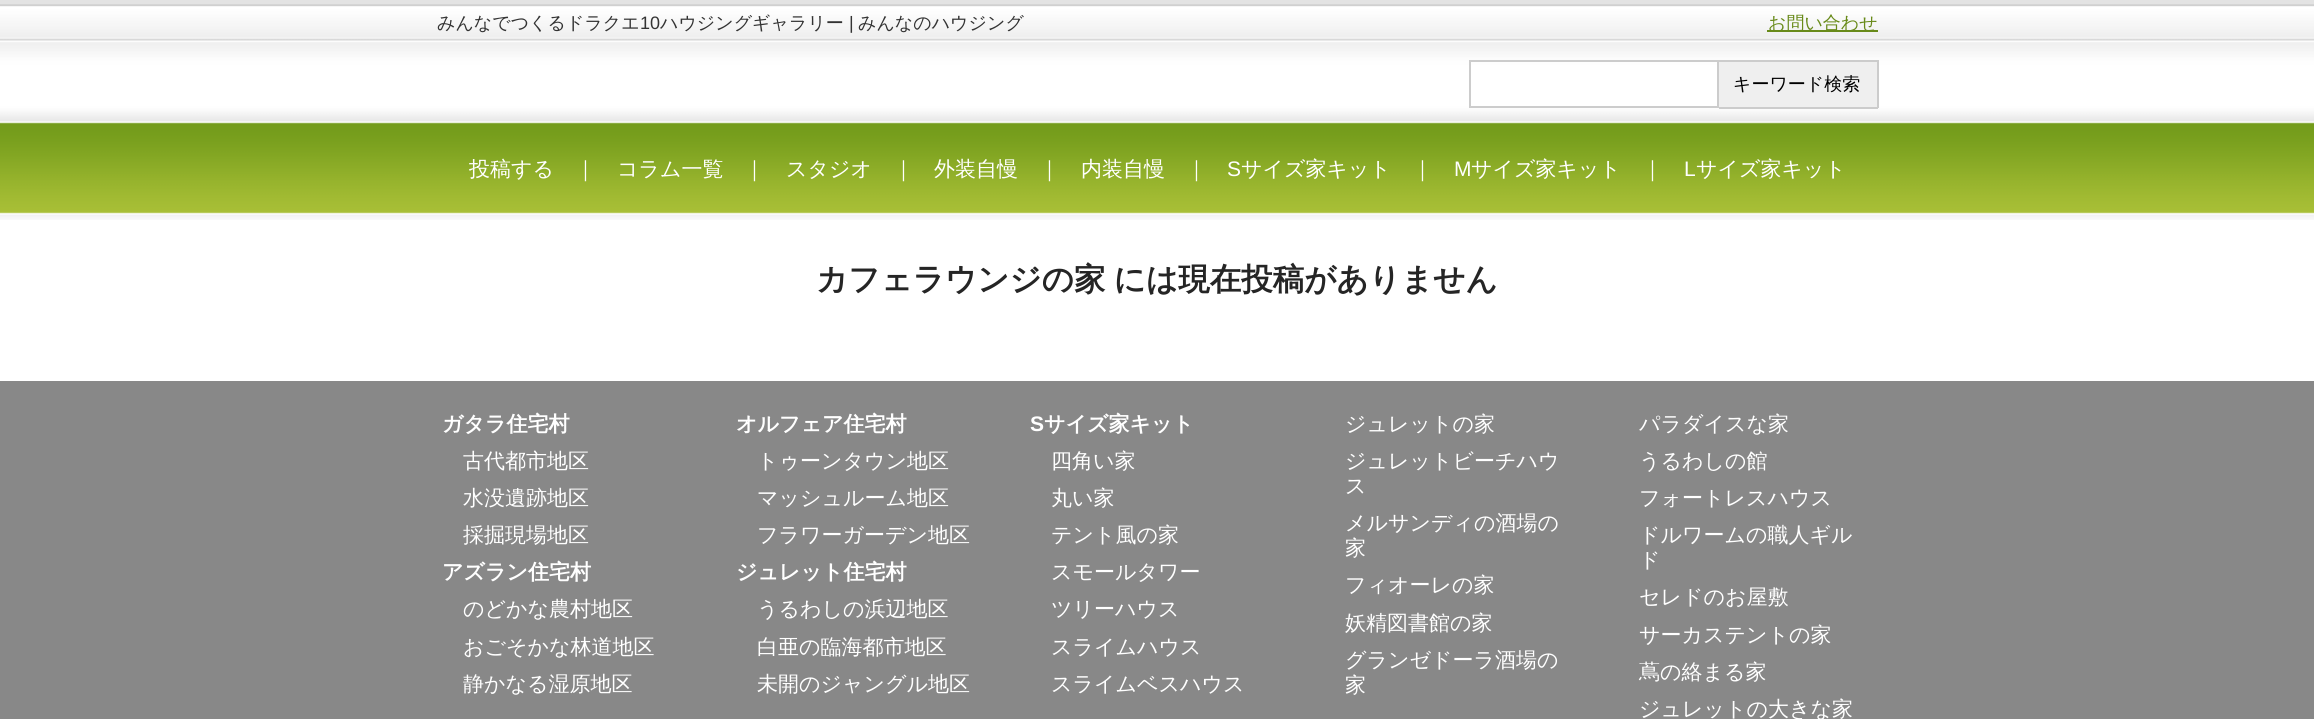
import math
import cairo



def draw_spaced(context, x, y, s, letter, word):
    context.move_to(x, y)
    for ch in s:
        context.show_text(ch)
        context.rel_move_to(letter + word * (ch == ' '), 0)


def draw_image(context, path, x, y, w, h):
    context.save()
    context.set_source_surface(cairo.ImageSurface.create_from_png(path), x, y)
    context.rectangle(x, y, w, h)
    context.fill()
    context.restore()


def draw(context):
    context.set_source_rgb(1, 1, 1)
    context.paint()
    draw_image(context, "images/1.png", 0, 0, 2314, 220)
    context.set_source_rgb(104 / 255, 138 / 255, 25 / 255)
    context.rectangle(1767, 30, 111, 2)
    context.fill()
    context.rectangle(1470, 61, 248, 46)
    context.set_source_rgb(204 / 255, 204 / 255, 204 / 255)
    context.stroke()
    context.set_source_rgb(239 / 255, 239 / 255, 239 / 255)
    context.rectangle(1719, 62, 158, 45)
    context.fill()
    context.set_source_rgb(204 / 255, 204 / 255, 204 / 255)
    context.rectangle(1719, 60, 159, 2)
    context.fill()
    context.rectangle(1877, 60, 2, 48)
    context.fill()
    context.rectangle(1719, 107, 159, 2)
    context.fill()
    context.set_source_rgb(136 / 255, 136 / 255, 136 / 255)
    context.rectangle(0, 381, 2314, 338)
    context.fill()
    context.select_font_face("WenQuanYi Zen Hei Medium")
    context.set_font_size(18)
    context.set_source_rgb(51 / 255, 51 / 255, 51 / 255)
    context.move_to(437, 29)
    context.show_text("みんなでつくるドラクエ")
    context.select_font_face("Liberation Sans")
    context.move_to(640, 29)
    context.show_text("10")
    context.select_font_face("WenQuanYi Zen Hei Medium")
    context.move_to(660, 29)
    context.show_text("ハウジングギャラリー")
    context.select_font_face("Liberation Sans")
    context.move_to(849, 29)
    context.show_text("|")
    context.select_font_face("WenQuanYi Zen Hei Medium")
    context.move_to(858, 29)
    context.show_text("みんなのハウジング")
    context.set_source_rgb(104 / 255, 138 / 255, 25 / 255)
    context.move_to(1768, 29)
    context.show_text("お問い合わせ")
    context.set_source_rgb(0, 0, 0)
    context.move_to(1733, 90)
    context.show_text("キーワード検索")
    context.set_font_size(21)
    context.set_source_rgb(1, 1, 1)
    context.move_to(469, 176)
    context.show_text("投稿する")
    context.move_to(575, 176)
    context.show_text("｜")
    context.move_to(617, 176)
    context.show_text("コラム一覧")
    context.move_to(744, 176)
    context.show_text("｜")
    context.move_to(786, 176)
    context.show_text("スタジオ")
    context.move_to(893, 176)
    context.show_text("｜")
    context.move_to(934, 176)
    context.show_text("外装自慢")
    context.move_to(1039, 176)
    context.show_text("｜")
    context.move_to(1081, 176)
    context.show_text("内装自慢")
    context.move_to(1186, 176)
    context.show_text("｜")
    context.select_font_face("Liberation Sans")
    context.move_to(1227, 176)
    context.show_text("S")
    context.select_font_face("WenQuanYi Zen Hei Medium")
    context.move_to(1241, 176)
    context.show_text("サイズ家キット")
    context.move_to(1412, 176)
    context.show_text("｜")
    context.select_font_face("Liberation Sans")
    context.move_to(1454, 176)
    context.show_text("M")
    context.select_font_face("WenQuanYi Zen Hei Medium")
    context.move_to(1471, 176)
    context.show_text("サイズ家キット")
    context.move_to(1642, 176)
    context.show_text("｜")
    context.select_font_face("Liberation Sans")
    context.move_to(1684, 176)
    context.show_text("L")
    context.select_font_face("WenQuanYi Zen Hei Medium")
    context.move_to(1696, 176)
    context.show_text("サイズ家キット")
    context.select_font_face("WenQuanYi Zen Hei", cairo.FontSlant.NORMAL, cairo.FontWeight.BOLD)
    context.set_font_size(31.5)
    context.set_source_rgb(37 / 255, 37 / 255, 37 / 255)
    draw_spaced(context, 816, 290, "カフェラウンジの家 には現在投稿がありません", 0, -1)
    context.set_font_size(21)
    context.set_source_rgb(1, 1, 1)
    context.move_to(442, 431)
    context.show_text("ガタラ住宅村")
    context.select_font_face("WenQuanYi Zen Hei Medium")
    context.move_to(463, 468)
    context.show_text("古代都市地区")
    context.move_to(463, 505)
    context.show_text("水没遺跡地区")
    context.move_to(463, 542)
    context.show_text("採掘現場地区")
    context.select_font_face("WenQuanYi Zen Hei", cairo.FontSlant.NORMAL, cairo.FontWeight.BOLD)
    context.move_to(442, 579)
    context.show_text("アズラン住宅村")
    context.select_font_face("WenQuanYi Zen Hei Medium")
    context.move_to(463, 616)
    context.show_text("のどかな農村地区")
    context.move_to(463, 654)
    context.show_text("おごそかな林道地区")
    context.move_to(463, 691)
    context.show_text("静かなる湿原地区")
    context.select_font_face("WenQuanYi Zen Hei", cairo.FontSlant.NORMAL, cairo.FontWeight.BOLD)
    context.move_to(736, 431)
    context.show_text("オルフェア住宅村")
    context.select_font_face("WenQuanYi Zen Hei Medium")
    context.move_to(757, 468)
    context.show_text("トゥーンタウン地区")
    context.move_to(757, 505)
    context.show_text("マッシュルーム地区")
    context.move_to(757, 542)
    context.show_text("フラワーガーデン地区")
    context.select_font_face("WenQuanYi Zen Hei", cairo.FontSlant.NORMAL, cairo.FontWeight.BOLD)
    context.move_to(736, 579)
    context.show_text("ジュレット住宅村")
    context.select_font_face("WenQuanYi Zen Hei Medium")
    context.move_to(757, 616)
    context.show_text("うるわしの浜辺地区")
    context.move_to(757, 654)
    context.show_text("白亜の臨海都市地区")
    context.move_to(757, 691)
    context.show_text("未開のジャングル地区")
    context.select_font_face("Liberation Sans", cairo.FontSlant.NORMAL, cairo.FontWeight.BOLD)
    context.move_to(1030, 431)
    context.show_text("S")
    context.select_font_face("WenQuanYi Zen Hei", cairo.FontSlant.NORMAL, cairo.FontWeight.BOLD)
    context.move_to(1044, 431)
    context.show_text("サイズ家キット")
    context.select_font_face("WenQuanYi Zen Hei Medium")
    context.move_to(1051, 468)
    context.show_text("四角い家")
    context.move_to(1051, 505)
    context.show_text("丸い家")
    context.move_to(1051, 542)
    context.show_text("テント風の家")
    context.move_to(1051, 579)
    context.show_text("スモールタワー")
    context.move_to(1051, 616)
    context.show_text("ツリーハウス")
    context.move_to(1051, 654)
    context.show_text("スライムハウス")
    context.move_to(1051, 691)
    context.show_text("スライムベスハウス")
    context.move_to(1345, 431)
    context.show_text("ジュレットの家")
    context.move_to(1345, 468)
    context.show_text("ジュレットビーチハウ")
    context.move_to(1345, 493)
    context.show_text("ス")
    context.move_to(1345, 530)
    context.show_text("メルサンディの酒場の")
    context.move_to(1345, 555)
    context.show_text("家")
    context.move_to(1345, 592)
    context.show_text("フィオーレの家")
    context.move_to(1345, 630)
    context.show_text("妖精図書館の家")
    context.move_to(1345, 667)
    context.show_text("グランゼドーラ酒場の")
    context.move_to(1345, 692)
    context.show_text("家")
    context.move_to(1639, 431)
    context.show_text("パラダイスな家")
    context.move_to(1639, 468)
    context.show_text("うるわしの館")
    context.move_to(1639, 505)
    context.show_text("フォートレスハウス")
    context.move_to(1639, 542)
    context.show_text("ドルワームの職人ギル")
    context.move_to(1639, 567)
    context.show_text("ド")
    context.move_to(1639, 604)
    context.show_text("セレドのお屋敷")
    context.move_to(1639, 642)
    context.show_text("サーカステントの家")
    context.move_to(1639, 679)
    context.show_text("蔦の絡まる家")
    context.move_to(1639, 716)
    context.show_text("ジュレットの大きな家")


surface = cairo.ImageSurface(cairo.Format.RGB24, 2314, 719)
context = cairo.Context(surface)
options = cairo.FontOptions()
options.set_hint_metrics(cairo.HintMetrics.OFF)
options.set_hint_style(cairo.HintStyle.NONE)
context.set_font_options(options)
context.set_miter_limit(4)
draw(context)
surface.write_to_png("out.png")
